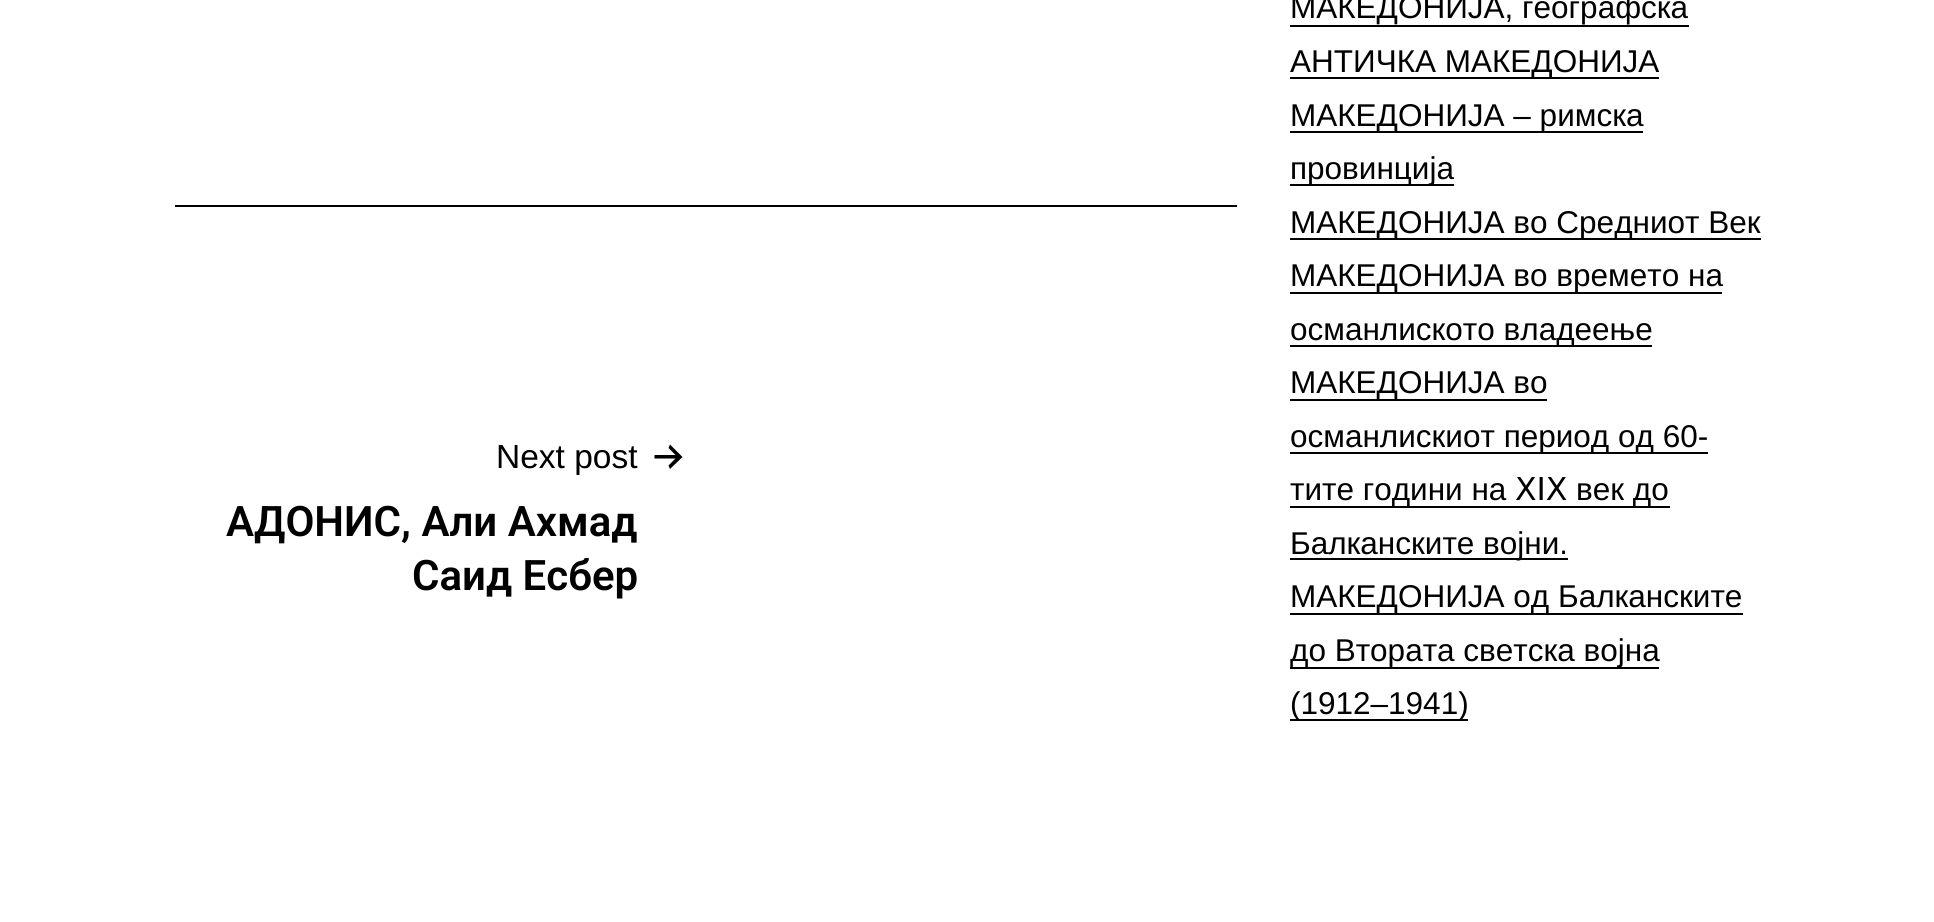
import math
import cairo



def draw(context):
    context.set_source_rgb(1, 1, 1)
    context.paint()
    context.set_source_rgb(0, 0, 0)
    context.rectangle(175, 205, 1062, 2)
    context.fill()
    context.set_fill_rule(cairo.FillRule.EVEN_ODD)
    context.new_path()
    context.move_to(654.5, 458.5)
    context.line_to(654.5, 455)
    context.line_to(675.5, 455)
    context.line_to(668.5, 448)
    context.line_to(670, 444.5)
    context.line_to(682.5, 457)
    context.line_to(670, 469)
    context.line_to(668.5, 465.5)
    context.line_to(675.5, 458.5)
    context.close_path()
    context.fill()
    context.rectangle(1290, 25, 399, 2)
    context.fill()
    context.rectangle(1290, 77, 369, 2)
    context.fill()
    context.rectangle(1290, 131, 353, 2)
    context.fill()
    context.rectangle(1290, 184, 164, 2)
    context.fill()
    context.rectangle(1290, 238, 471, 2)
    context.fill()
    context.rectangle(1290, 292, 432, 2)
    context.fill()
    context.rectangle(1290, 345, 362, 2)
    context.fill()
    context.rectangle(1290, 399, 257, 2)
    context.fill()
    context.rectangle(1290, 452, 418, 2)
    context.fill()
    context.rectangle(1290, 506, 380, 2)
    context.fill()
    context.rectangle(1290, 558, 278, 2)
    context.fill()
    context.rectangle(1290, 613, 453, 2)
    context.fill()
    context.rectangle(1290, 667, 369, 2)
    context.fill()
    context.rectangle(1290, 719, 178, 2)
    context.fill()
    context.select_font_face("Liberation Sans")
    context.set_font_size(33.5)
    context.move_to(496, 468)
    context.show_text("Next post")
    context.select_font_face("Roboto SemiBold")
    context.set_font_size(42)
    context.move_to(226, 536)
    context.show_text("АДОНИС, Али Ахмад")
    context.move_to(412, 590)
    context.show_text("Саид Есбер")
    context.select_font_face("Liberation Sans")
    context.set_font_size(31.5)
    context.move_to(1290, 18)
    context.show_text("МАКЕДОНИЈА, географска")
    context.move_to(1290, 72)
    context.show_text("АНТИЧКА МАКЕДОНИЈА")
    context.move_to(1290, 126)
    context.show_text("МАКЕДОНИЈА – римска")
    context.move_to(1290, 179)
    context.show_text("провинција")
    context.move_to(1290, 233)
    context.show_text("МАКЕДОНИЈА во Средниот Век")
    context.move_to(1290, 286)
    context.show_text("МАКЕДОНИЈА во времето на")
    context.move_to(1290, 340)
    context.show_text("османлиското владеење")
    context.move_to(1290, 393)
    context.show_text("МАКЕДОНИЈА во")
    context.move_to(1290, 447)
    context.show_text("османлискиот период од 60-")
    context.move_to(1290, 500)
    context.show_text("тите години на")
    context.select_font_face("DejaVu Sans")
    context.move_to(1515, 500)
    context.show_text("ⅩⅠⅩ")
    context.select_font_face("Liberation Sans")
    context.move_to(1576, 500)
    context.show_text("век до")
    context.move_to(1290, 554)
    context.show_text("Балканските војни.")
    context.move_to(1290, 607)
    context.show_text("МАКЕДОНИЈА од Балканските")
    context.move_to(1290, 661)
    context.show_text("до Втората светска војна")
    context.move_to(1290, 714)
    context.show_text("(1912–1941)")


surface = cairo.ImageSurface(cairo.Format.RGB24, 1934, 922)
context = cairo.Context(surface)
options = cairo.FontOptions()
options.set_hint_metrics(cairo.HintMetrics.OFF)
options.set_hint_style(cairo.HintStyle.NONE)
context.set_font_options(options)
context.set_miter_limit(4)
draw(context)
surface.write_to_png("out.png")
